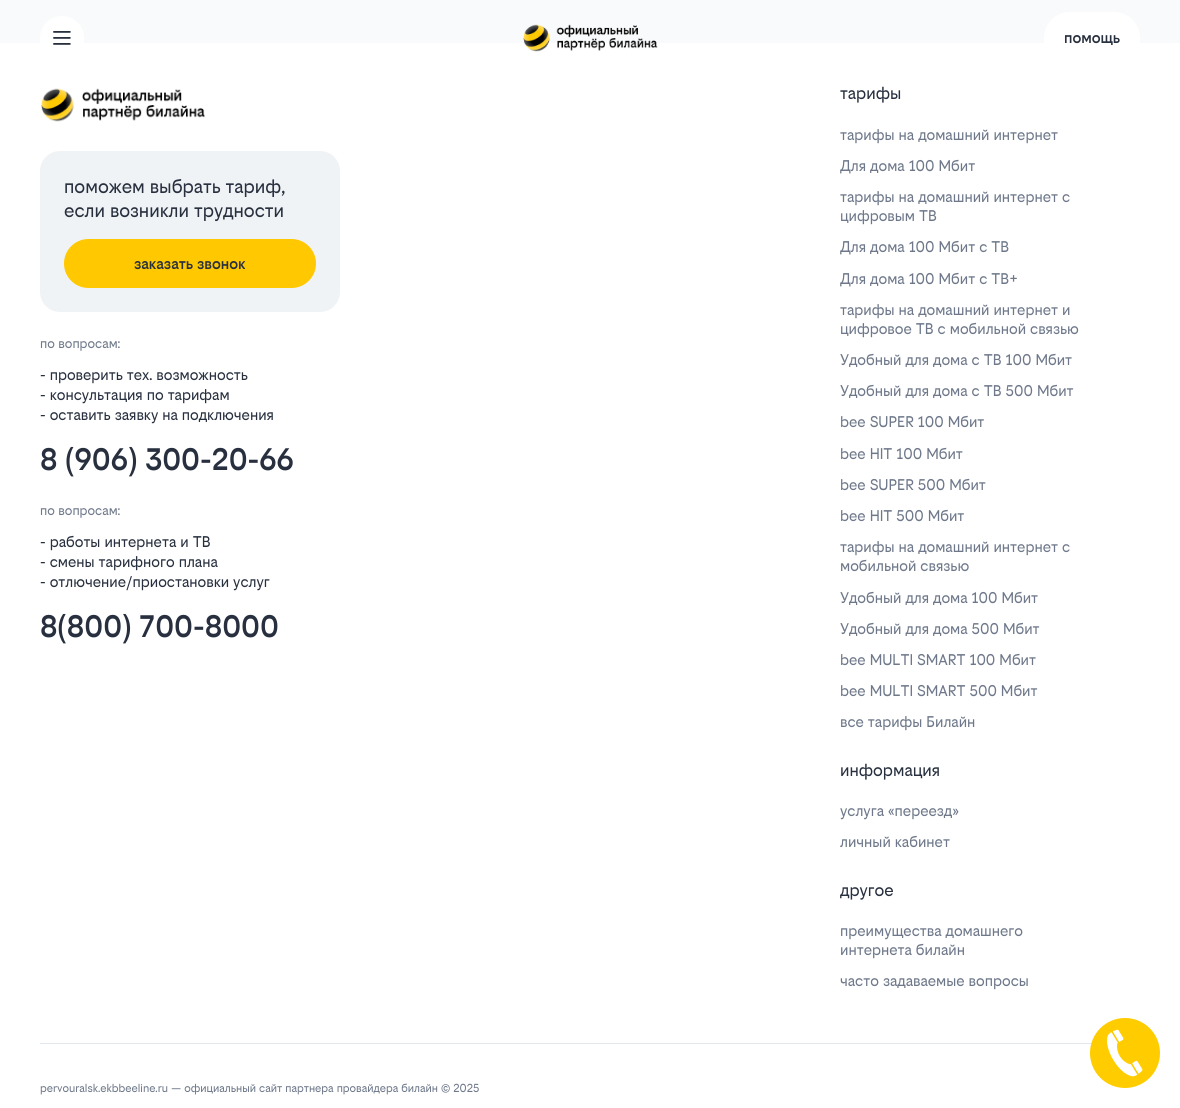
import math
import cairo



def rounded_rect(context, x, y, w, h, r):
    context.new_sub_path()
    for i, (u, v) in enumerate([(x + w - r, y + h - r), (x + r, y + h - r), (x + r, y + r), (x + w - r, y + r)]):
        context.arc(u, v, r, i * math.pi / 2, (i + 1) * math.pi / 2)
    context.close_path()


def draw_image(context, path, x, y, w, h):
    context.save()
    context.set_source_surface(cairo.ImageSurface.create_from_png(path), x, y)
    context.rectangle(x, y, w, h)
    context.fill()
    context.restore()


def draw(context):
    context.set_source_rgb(249 / 255, 250 / 255, 251 / 255)
    context.paint()
    context.set_source_rgb(1, 1, 1)
    context.rectangle(0, 43, 1180, 1065)
    context.fill()
    context.arc(62, 38, 22, 0, 2 * math.pi)
    context.fill()
    draw_image(context, "images/1.png", 53, 31, 18, 14)
    draw_image(context, "images/2.png", 523, 24, 135, 28)
    rounded_rect(context, 1044, 12, 96, 52, 26)
    context.fill()
    draw_image(context, "images/3.png", 41, 88, 164, 34)
    context.set_source_rgb(240 / 255, 243 / 255, 245 / 255)
    rounded_rect(context, 40, 151, 300, 161, 20)
    context.fill()
    context.set_source_rgb(1, 200 / 255, 0)
    rounded_rect(context, 64, 239, 252, 49, 24.5)
    context.fill()
    context.set_source_rgb(226 / 255, 230 / 255, 237 / 255)
    context.rectangle(40, 1043, 1052, 1)
    context.fill()
    context.set_source_rgb(1, 204 / 255, 0)
    context.arc(1125, 1053, 35, 0, 2 * math.pi)
    context.fill()
    draw_image(context, "images/4.png", 1107, 1029, 36, 48)
    context.select_font_face("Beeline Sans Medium")
    context.set_font_size(16)
    context.set_source_rgb(40 / 255, 48 / 255, 63 / 255)
    context.move_to(1064, 43)
    context.show_text("помощь")
    context.select_font_face("Beeline Sans")
    context.set_font_size(20)
    context.move_to(64, 193)
    context.show_text("поможем выбрать тариф,")
    context.move_to(64, 217)
    context.show_text("если возникли трудности")
    context.select_font_face("Beeline Sans Medium")
    context.set_font_size(16)
    context.move_to(134, 269)
    context.show_text("заказать звонок")
    context.select_font_face("Beeline Sans")
    context.set_font_size(14)
    context.set_source_rgb(110 / 255, 120 / 255, 138 / 255)
    context.move_to(40, 348)
    context.show_text("по вопросам:")
    context.set_font_size(16)
    context.set_source_rgb(40 / 255, 48 / 255, 63 / 255)
    context.move_to(40, 380)
    context.show_text("- проверить тех. возможность")
    context.move_to(40, 400)
    context.show_text("- консультация по тарифам")
    context.move_to(40, 420)
    context.show_text("- оставить заявку на подключения")
    context.select_font_face("Beeline Sans Medium")
    context.set_font_size(32)
    context.move_to(40, 470)
    context.show_text("8 (906) 300-20-66")
    context.select_font_face("Beeline Sans")
    context.set_font_size(14)
    context.set_source_rgb(110 / 255, 120 / 255, 138 / 255)
    context.move_to(40, 515)
    context.show_text("по вопросам:")
    context.set_font_size(16)
    context.set_source_rgb(40 / 255, 48 / 255, 63 / 255)
    context.move_to(40, 547)
    context.show_text("- работы интернета и ТВ")
    context.move_to(40, 567)
    context.show_text("- смены тарифного плана")
    context.move_to(40, 587)
    context.show_text("- отлючение/приостановки услуг")
    context.select_font_face("Beeline Sans Medium")
    context.set_font_size(32)
    context.move_to(40, 637)
    context.show_text("8(800) 700-8000")
    context.select_font_face("Beeline Sans")
    context.set_font_size(18)
    context.move_to(840, 99)
    context.show_text("тарифы")
    context.set_font_size(16)
    context.set_source_rgb(110 / 255, 120 / 255, 138 / 255)
    context.move_to(840, 140)
    context.show_text("тарифы на домашний интернет")
    context.move_to(840, 171)
    context.show_text("Для дома 100 Мбит")
    context.move_to(840, 202)
    context.show_text("тарифы на домашний интернет с")
    context.move_to(840, 221)
    context.show_text("цифровым ТВ")
    context.move_to(840, 252)
    context.show_text("Для дома 100 Мбит с ТВ")
    context.move_to(840, 284)
    context.show_text("Для дома 100 Мбит с ТВ+")
    context.move_to(840, 315)
    context.show_text("тарифы на домашний интернет и")
    context.move_to(840, 334)
    context.show_text("цифровое ТВ с мобильной связью")
    context.move_to(840, 365)
    context.show_text("Удобный для дома с ТВ 100 Мбит")
    context.move_to(840, 396)
    context.show_text("Удобный для дома с ТВ 500 Мбит")
    context.move_to(840, 427)
    context.show_text("bee SUPER 100 Мбит")
    context.move_to(840, 459)
    context.show_text("bee HIT 100 Мбит")
    context.move_to(840, 490)
    context.show_text("bee SUPER 500 Мбит")
    context.move_to(840, 521)
    context.show_text("bee HIT 500 Мбит")
    context.move_to(840, 552)
    context.show_text("тарифы на домашний интернет с")
    context.move_to(840, 571)
    context.show_text("мобильной связью")
    context.move_to(840, 603)
    context.show_text("Удобный для дома 100 Мбит")
    context.move_to(840, 634)
    context.show_text("Удобный для дома 500 Мбит")
    context.move_to(840, 665)
    context.show_text("bee MULTI SMART 100 Мбит")
    context.move_to(840, 696)
    context.show_text("bee MULTI SMART 500 Мбит")
    context.move_to(840, 727)
    context.show_text("все тарифы Билайн")
    context.set_font_size(18)
    context.set_source_rgb(40 / 255, 48 / 255, 63 / 255)
    context.move_to(840, 776)
    context.show_text("информация")
    context.set_font_size(16)
    context.set_source_rgb(110 / 255, 120 / 255, 138 / 255)
    context.move_to(840, 816)
    context.show_text("услуга «переезд»")
    context.move_to(840, 847)
    context.show_text("личный кабинет")
    context.set_font_size(18)
    context.set_source_rgb(40 / 255, 48 / 255, 63 / 255)
    context.move_to(840, 896)
    context.show_text("другое")
    context.set_font_size(16)
    context.set_source_rgb(110 / 255, 120 / 255, 138 / 255)
    context.move_to(840, 936)
    context.show_text("преимущества домашнего")
    context.move_to(840, 955)
    context.show_text("интернета билайн")
    context.move_to(840, 986)
    context.show_text("часто задаваемые вопросы")
    context.set_font_size(12)
    context.move_to(40, 1092)
    context.show_text("pervouralsk.ekbbeeline.ru — официальный сайт партнера провайдера билайн © 2025")


surface = cairo.ImageSurface(cairo.Format.RGB24, 1180, 1108)
context = cairo.Context(surface)
options = cairo.FontOptions()
options.set_hint_metrics(cairo.HintMetrics.OFF)
options.set_hint_style(cairo.HintStyle.NONE)
context.set_font_options(options)
context.set_miter_limit(4)
draw(context)
surface.write_to_png("out.png")
